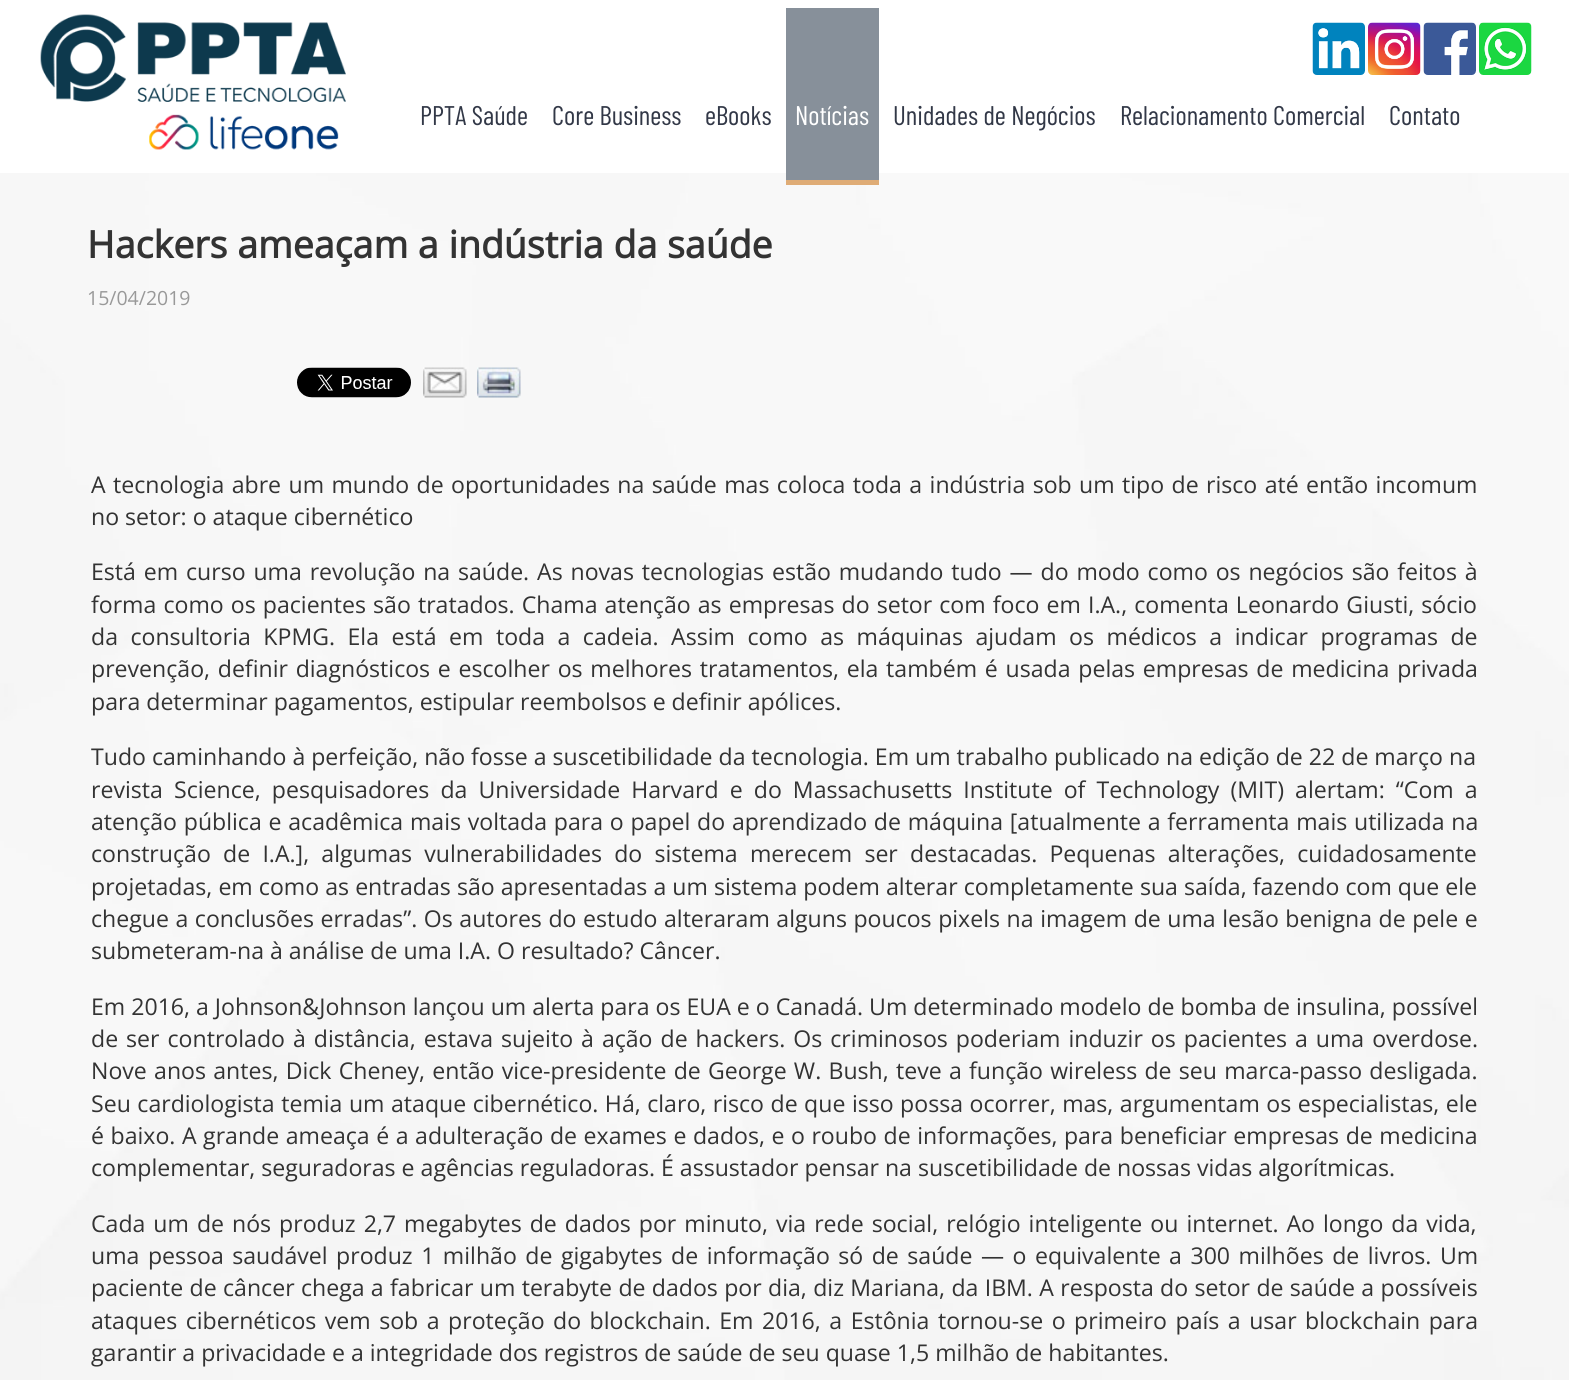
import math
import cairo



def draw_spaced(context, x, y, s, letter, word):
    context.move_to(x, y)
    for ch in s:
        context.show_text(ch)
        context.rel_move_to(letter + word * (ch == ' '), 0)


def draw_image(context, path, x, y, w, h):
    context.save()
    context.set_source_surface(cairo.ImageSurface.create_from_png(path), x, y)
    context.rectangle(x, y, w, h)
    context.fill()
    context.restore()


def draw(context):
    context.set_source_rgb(1, 1, 1)
    context.paint()
    draw_image(context, "images/1.png", 0, 173, 1569, 1207)
    draw_image(context, "images/2.png", 40, 14, 306, 136)
    draw_image(context, "images/3.png", 1312, 22, 53, 53)
    draw_image(context, "images/4.png", 1368, 22, 53, 53)
    draw_image(context, "images/5.png", 1423, 22, 53, 53)
    draw_image(context, "images/6.png", 1479, 22, 53, 53)
    context.set_source_rgb(135 / 255, 144 / 255, 154 / 255)
    context.rectangle(786, 8, 93, 172)
    context.fill()
    context.set_source_rgb(223 / 255, 172 / 255, 118 / 255)
    context.rectangle(786, 180, 93, 5)
    context.fill()
    draw_image(context, "images/7.png", 297, 367, 114, 31)
    draw_image(context, "images/8.png", 423, 367, 44, 31)
    draw_image(context, "images/9.png", 477, 367, 44, 31)
    context.select_font_face("Barlow Condensed")
    context.set_font_size(27)
    context.set_source_rgb(50 / 255, 56 / 255, 71 / 255)
    context.move_to(420, 125)
    context.show_text("PPTA Saúde")
    context.move_to(552, 125)
    context.show_text("Core Business")
    context.move_to(705, 125)
    context.show_text("eBooks")
    context.set_source_rgb(1, 1, 1)
    context.move_to(795, 125)
    context.show_text("Notícias")
    context.set_source_rgb(50 / 255, 56 / 255, 71 / 255)
    context.move_to(893, 125)
    context.show_text("Unidades de Negócios")
    context.move_to(1120, 125)
    context.show_text("Relacionamento Comercial")
    context.move_to(1389, 125)
    context.show_text("Contato")
    context.select_font_face("Open Sans", cairo.FontSlant.NORMAL, cairo.FontWeight.BOLD)
    context.set_font_size(37.5)
    context.set_source_rgb(51 / 255, 51 / 255, 51 / 255)
    context.move_to(87, 258)
    context.show_text("Hackers ameaçam a indústria da saúde")
    context.select_font_face("Open Sans")
    context.set_font_size(19.5)
    context.set_source_rgb(153 / 255, 153 / 255, 153 / 255)
    context.move_to(87, 305)
    context.show_text("15/04/2019")
    context.set_font_size(23.1)
    context.set_source_rgb(51 / 255, 51 / 255, 51 / 255)
    draw_spaced(context, 91, 493, "A tecnologia abre um mundo de oportunidades na saúde mas coloca toda a indústria sob um tipo de risco até então incomum", 0, 1.4)
    context.move_to(91, 525)
    context.show_text("no setor: o ataque cibernético")
    draw_spaced(context, 91, 580, "Está em curso uma revolução na saúde. As novas tecnologias estão mudando tudo — do modo como os negócios são feitos à", 0, 1.85)
    draw_spaced(context, 91, 613, "forma como os pacientes são tratados. Chama atenção as empresas do setor com foco em I.A., comenta Leonardo Giusti, sócio", 0, 1.1)
    draw_spaced(context, 91, 645, "da consultoria KPMG. Ela está em toda a cadeia. Assim como as máquinas ajudam os médicos a indicar programas de", 0, 6.5)
    draw_spaced(context, 91, 677, "prevenção, definir diagnósticos e escolher os melhores tratamentos, ela também é usada pelas empresas de medicina privada", 0, 1.75)
    context.move_to(91, 710)
    context.show_text("para determinar pagamentos, estipular reembolsos e definir apólices.")
    context.move_to(91, 765)
    context.show_text("Tudo caminhando à perfeição, não fosse a suscetibilidade da tecnologia. Em um trabalho publicado na edição de 22 de março na")
    draw_spaced(context, 91, 798, "revista Science, pesquisadores da Universidade Harvard e do Massachusetts Institute of Technology (MIT) alertam: “Com a", 0, 5.1)
    draw_spaced(context, 91, 830, "atenção pública e acadêmica mais voltada para o papel do aprendizado de máquina [atualmente a ferramenta mais utilizada na", 0, 0.75)
    draw_spaced(context, 91, 862, "construção de I.A.], algumas vulnerabilidades do sistema merecem ser destacadas. Pequenas alterações, cuidadosamente", 0, 6.25)
    draw_spaced(context, 91, 895, "projetadas, em como as entradas são apresentadas a um sistema podem alterar completamente sua saída, fazendo com que ele", 0, 0.1)
    draw_spaced(context, 91, 927, "chegue a conclusões erradas”. Os autores do estudo alteraram alguns poucos pixels na imagem de uma lesão benigna de pele e", 0, 0.55)
    context.move_to(91, 959)
    context.show_text("submeteram-na à análise de uma I.A. O resultado? Câncer.")
    context.move_to(91, 1015)
    context.show_text("Em 2016, a Johnson&Johnson lançou um alerta para os EUA e o Canadá. Um determinado modelo de bomba de insulina, possível")
    draw_spaced(context, 91, 1047, "de ser controlado à distância, estava sujeito à ação de hackers. Os criminosos poderiam induzir os pacientes a uma overdose.", 0, 2)
    draw_spaced(context, 91, 1079, "Nove anos antes, Dick Cheney, então vice-presidente de George W. Bush, teve a função wireless de seu marca-passo desligada.", 0, 1.25)
    draw_spaced(context, 91, 1112, "Seu cardiologista temia um ataque cibernético. Há, claro, risco de que isso possa ocorrer, mas, argumentam os especialistas, ele", 0, 0.5)
    draw_spaced(context, 91, 1144, "é baixo. A grande ameaça é a adulteração de exames e dados, e o roubo de informações, para beneficiar empresas de medicina", 0, 0.55)
    context.move_to(91, 1176)
    context.show_text("complementar, seguradoras e agências reguladoras. É assustador pensar na suscetibilidade de nossas vidas algorítmicas.")
    draw_spaced(context, 91, 1232, "Cada um de nós produz 2,7 megabytes de dados por minuto, via rede social, relógio inteligente ou internet. Ao longo da vida,", 0, 2)
    draw_spaced(context, 91, 1264, "uma pessoa saudável produz 1 milhão de gigabytes de informação só de saúde — o equivalente a 300 milhões de livros. Um", 0, 2.5)
    draw_spaced(context, 91, 1296, "paciente de câncer chega a fabricar um terabyte de dados por dia, diz Mariana, da IBM. A resposta do setor de saúde a possíveis", 0, 0.35)
    draw_spaced(context, 91, 1329, "ataques cibernéticos vem sob a proteção do blockchain. Em 2016, a Estônia tornou-se o primeiro país a usar blockchain para", 0, 2.5)
    context.move_to(91, 1361)
    context.show_text("garantir a privacidade e a integridade dos registros de saúde de seu quase 1,5 milhão de habitantes.")


surface = cairo.ImageSurface(cairo.Format.RGB24, 1569, 1380)
context = cairo.Context(surface)
options = cairo.FontOptions()
options.set_hint_metrics(cairo.HintMetrics.OFF)
options.set_hint_style(cairo.HintStyle.NONE)
context.set_font_options(options)
context.set_miter_limit(4)
draw(context)
surface.write_to_png("out.png")
